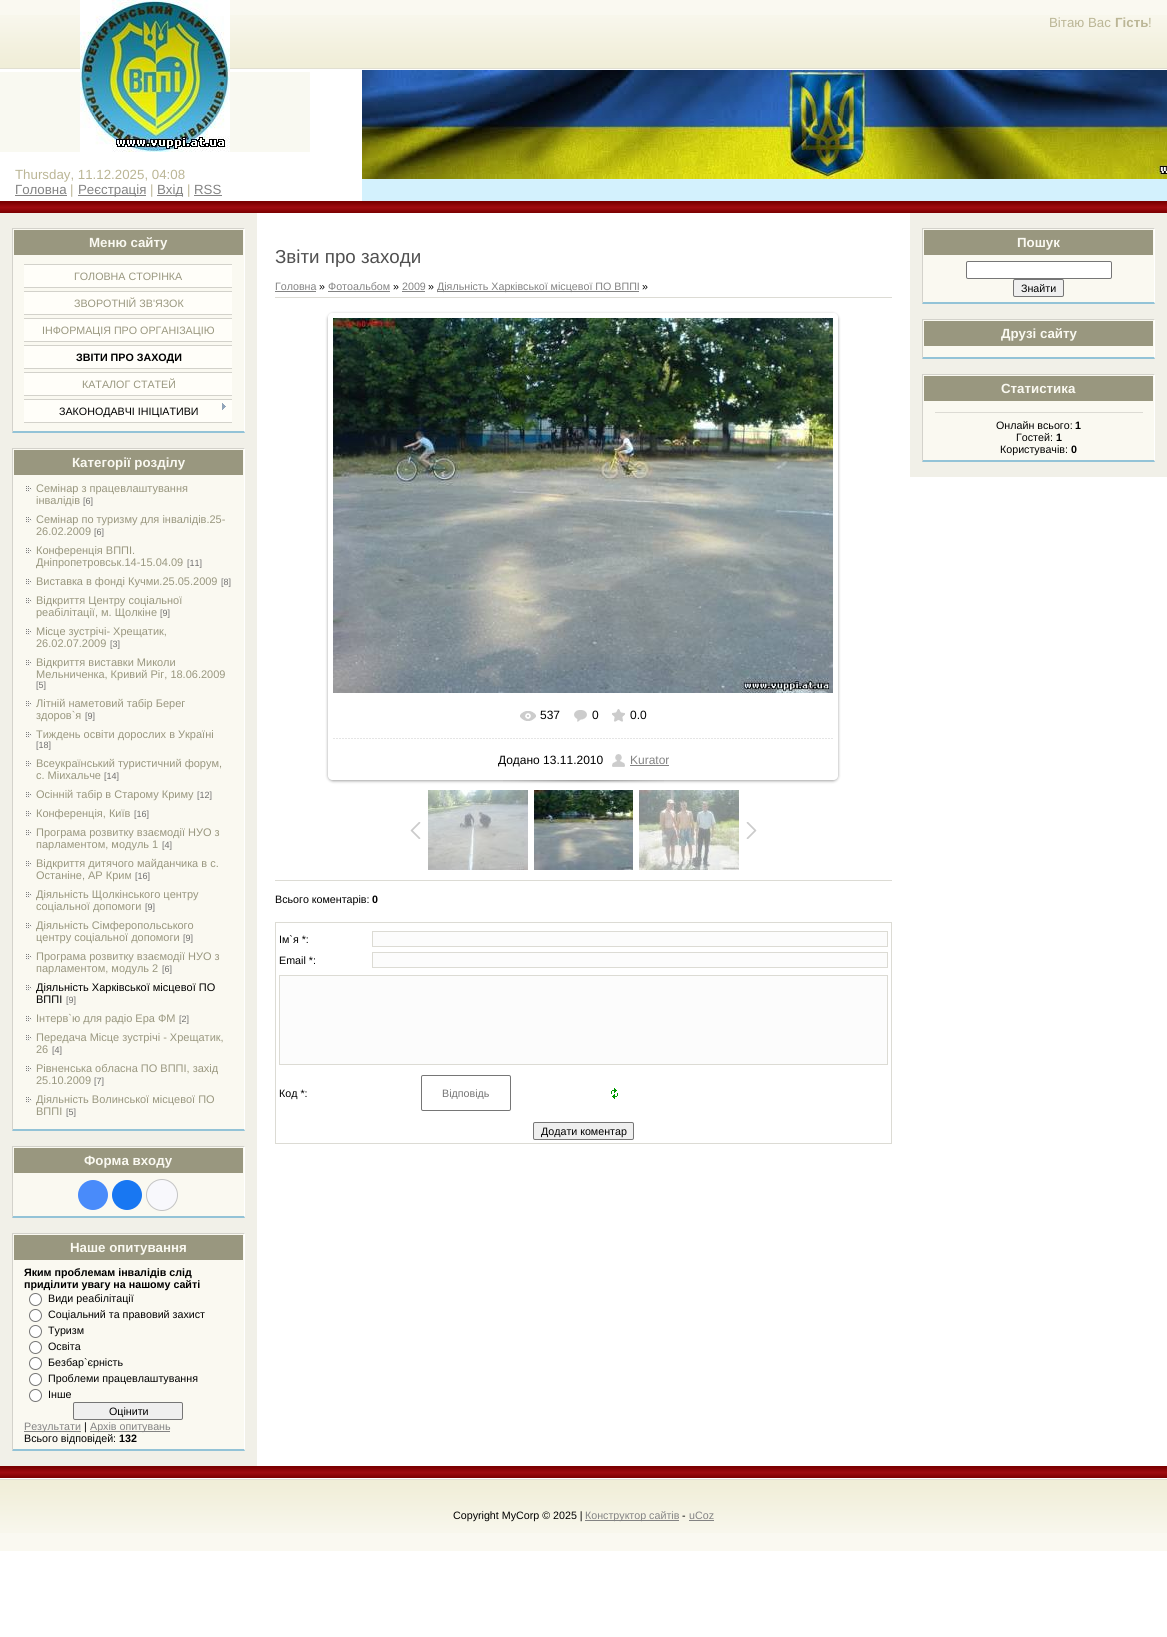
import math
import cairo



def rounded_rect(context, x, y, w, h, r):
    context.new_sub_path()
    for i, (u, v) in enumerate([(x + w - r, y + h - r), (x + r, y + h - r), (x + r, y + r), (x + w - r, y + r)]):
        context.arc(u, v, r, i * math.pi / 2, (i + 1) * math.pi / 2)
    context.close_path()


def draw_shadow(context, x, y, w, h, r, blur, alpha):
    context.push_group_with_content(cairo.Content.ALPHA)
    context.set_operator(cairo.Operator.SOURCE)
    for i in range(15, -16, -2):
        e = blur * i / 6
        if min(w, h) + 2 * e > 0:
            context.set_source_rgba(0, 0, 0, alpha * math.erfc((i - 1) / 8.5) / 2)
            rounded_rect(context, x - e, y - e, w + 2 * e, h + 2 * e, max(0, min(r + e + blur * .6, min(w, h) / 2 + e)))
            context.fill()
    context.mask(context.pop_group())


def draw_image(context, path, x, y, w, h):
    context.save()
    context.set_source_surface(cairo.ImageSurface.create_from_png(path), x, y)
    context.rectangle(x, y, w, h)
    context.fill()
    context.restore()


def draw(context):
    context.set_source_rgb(1, 1, 1)
    context.paint()
    context.set_source_rgb(250 / 255, 249 / 255, 241 / 255)
    context.rectangle(0, 0, 1167, 15)
    context.fill()
    draw_image(context, "images/1.png", 0, 15, 1167, 55)
    draw_image(context, "images/2.png", 80, 0, 150, 152)
    context.set_source_rgb(249 / 255, 249 / 255, 241 / 255)
    context.rectangle(0, 72, 80, 80)
    context.fill()
    context.rectangle(230, 72, 80, 80)
    context.fill()
    context.set_source_rgb(131 / 255, 131 / 255, 131 / 255)
    context.rectangle(15, 195, 52, 1)
    context.fill()
    context.rectangle(78, 195, 68, 1)
    context.fill()
    context.rectangle(157, 195, 26, 1)
    context.fill()
    context.rectangle(194, 195, 28, 1)
    context.fill()
    context.set_source_rgb(211 / 255, 241 / 255, 253 / 255)
    context.rectangle(362, 179, 805, 22)
    context.fill()
    draw_image(context, "images/3.png", 362, 70, 805, 109)
    draw_image(context, "images/4.png", 0, 201, 1167, 12)
    context.set_source_rgb(241 / 255, 240 / 255, 232 / 255)
    context.rectangle(0, 213, 257, 1253)
    context.fill()
    context.set_source_rgb(250 / 255, 249 / 255, 241 / 255)
    context.rectangle(13, 256, 231, 175)
    context.fill()
    context.set_source_rgb(211 / 255, 210 / 255, 203 / 255)
    context.rectangle(12, 228, 233, 1)
    context.fill()
    context.set_source_rgb(1, 1, 1)
    context.new_path()
    context.move_to(245, 228)
    context.line_to(245, 433)
    context.line_to(244, 431)
    context.line_to(244, 229)
    context.close_path()
    context.fill()
    context.set_source_rgb(147 / 255, 195 / 255, 215 / 255)
    context.new_path()
    context.move_to(245, 433)
    context.line_to(12, 433)
    context.line_to(13, 431)
    context.line_to(244, 431)
    context.close_path()
    context.fill()
    context.set_source_rgb(211 / 255, 210 / 255, 203 / 255)
    context.new_path()
    context.move_to(12, 433)
    context.line_to(12, 228)
    context.line_to(13, 229)
    context.line_to(13, 431)
    context.close_path()
    context.fill()
    context.set_source_rgb(153 / 255, 151 / 255, 127 / 255)
    context.rectangle(13.5, 229.5, 230, 26)
    context.fill_preserve()
    context.set_source_rgb(250 / 255, 249 / 255, 241 / 255)
    context.set_line_width(1)
    context.stroke()
    context.set_source_rgb(1, 254 / 255, 249 / 255)
    context.rectangle(24, 265, 208, 22)
    context.fill()
    context.set_source_rgb(211 / 255, 210 / 255, 203 / 255)
    context.rectangle(24, 264, 208, 1)
    context.fill()
    context.rectangle(24, 287, 208, 1)
    context.fill()
    context.set_source_rgb(1, 254 / 255, 249 / 255)
    context.rectangle(24, 292, 208, 22)
    context.fill()
    context.set_source_rgb(211 / 255, 210 / 255, 203 / 255)
    context.rectangle(24, 291, 208, 1)
    context.fill()
    context.rectangle(24, 314, 208, 1)
    context.fill()
    context.set_source_rgb(1, 254 / 255, 249 / 255)
    context.rectangle(24, 319, 208, 22)
    context.fill()
    context.set_source_rgb(211 / 255, 210 / 255, 203 / 255)
    context.rectangle(24, 318, 208, 1)
    context.fill()
    context.rectangle(24, 341, 208, 1)
    context.fill()
    context.set_source_rgb(1, 254 / 255, 249 / 255)
    context.rectangle(24, 346, 208, 22)
    context.fill()
    context.set_source_rgb(211 / 255, 210 / 255, 203 / 255)
    context.rectangle(24, 345, 208, 1)
    context.fill()
    context.rectangle(24, 368, 208, 1)
    context.fill()
    context.set_source_rgb(1, 254 / 255, 249 / 255)
    context.rectangle(24, 373, 208, 22)
    context.fill()
    context.set_source_rgb(211 / 255, 210 / 255, 203 / 255)
    context.rectangle(24, 372, 208, 1)
    context.fill()
    context.rectangle(24, 395, 208, 1)
    context.fill()
    context.set_source_rgb(1, 254 / 255, 249 / 255)
    context.rectangle(24, 400, 208, 22)
    context.fill()
    context.set_source_rgb(211 / 255, 210 / 255, 203 / 255)
    context.rectangle(24, 399, 208, 1)
    context.fill()
    context.rectangle(24, 422, 208, 1)
    context.fill()
    draw_image(context, "images/5.png", 222, 403, 4, 7)
    context.set_source_rgb(250 / 255, 249 / 255, 241 / 255)
    context.rectangle(13, 476, 231, 653)
    context.fill()
    context.set_source_rgb(211 / 255, 210 / 255, 203 / 255)
    context.rectangle(12, 448, 233, 1)
    context.fill()
    context.set_source_rgb(1, 1, 1)
    context.new_path()
    context.move_to(245, 448)
    context.line_to(245, 1131)
    context.line_to(244, 1129)
    context.line_to(244, 449)
    context.close_path()
    context.fill()
    context.set_source_rgb(147 / 255, 195 / 255, 215 / 255)
    context.new_path()
    context.move_to(245, 1131)
    context.line_to(12, 1131)
    context.line_to(13, 1129)
    context.line_to(244, 1129)
    context.close_path()
    context.fill()
    context.set_source_rgb(211 / 255, 210 / 255, 203 / 255)
    context.new_path()
    context.move_to(12, 1131)
    context.line_to(12, 448)
    context.line_to(13, 449)
    context.line_to(13, 1129)
    context.close_path()
    context.fill()
    context.set_source_rgb(153 / 255, 151 / 255, 127 / 255)
    context.rectangle(13.5, 449.5, 230, 26)
    context.fill_preserve()
    context.set_source_rgb(250 / 255, 249 / 255, 241 / 255)
    context.stroke()
    draw_image(context, "images/6.png", 26, 486, 6, 6)
    draw_image(context, "images/6.png", 26, 517, 6, 6)
    draw_image(context, "images/6.png", 26, 548, 6, 6)
    draw_image(context, "images/6.png", 26, 579, 6, 6)
    draw_image(context, "images/6.png", 26, 598, 6, 6)
    draw_image(context, "images/6.png", 26, 629, 6, 6)
    draw_image(context, "images/6.png", 26, 660, 6, 6)
    draw_image(context, "images/6.png", 26, 701, 6, 6)
    draw_image(context, "images/6.png", 26, 732, 6, 6)
    draw_image(context, "images/6.png", 26, 761, 6, 6)
    draw_image(context, "images/6.png", 26, 792, 6, 6)
    draw_image(context, "images/6.png", 26, 811, 6, 6)
    draw_image(context, "images/6.png", 26, 830, 6, 6)
    draw_image(context, "images/6.png", 26, 861, 6, 6)
    draw_image(context, "images/6.png", 26, 892, 6, 6)
    draw_image(context, "images/6.png", 26, 923, 6, 6)
    draw_image(context, "images/6.png", 26, 954, 6, 6)
    draw_image(context, "images/6.png", 26, 985, 6, 6)
    draw_image(context, "images/6.png", 26, 1016, 6, 6)
    draw_image(context, "images/6.png", 26, 1035, 6, 6)
    draw_image(context, "images/6.png", 26, 1066, 6, 6)
    draw_image(context, "images/6.png", 26, 1097, 6, 6)
    context.rectangle(13, 1174, 231, 42)
    context.fill()
    context.set_source_rgb(211 / 255, 210 / 255, 203 / 255)
    context.rectangle(12, 1146, 233, 1)
    context.fill()
    context.set_source_rgb(1, 1, 1)
    context.new_path()
    context.move_to(245, 1146)
    context.line_to(245, 1218)
    context.line_to(244, 1216)
    context.line_to(244, 1147)
    context.close_path()
    context.fill()
    context.set_source_rgb(147 / 255, 195 / 255, 215 / 255)
    context.new_path()
    context.move_to(245, 1218)
    context.line_to(12, 1218)
    context.line_to(13, 1216)
    context.line_to(244, 1216)
    context.close_path()
    context.fill()
    context.set_source_rgb(211 / 255, 210 / 255, 203 / 255)
    context.new_path()
    context.move_to(12, 1218)
    context.line_to(12, 1146)
    context.line_to(13, 1147)
    context.line_to(13, 1216)
    context.close_path()
    context.fill()
    context.set_source_rgb(153 / 255, 151 / 255, 127 / 255)
    context.rectangle(13.5, 1147.5, 230, 26)
    context.fill_preserve()
    context.set_source_rgb(250 / 255, 249 / 255, 241 / 255)
    context.stroke()
    context.set_source_rgb(73 / 255, 139 / 255, 250 / 255)
    context.arc(93, 1195, 15, 0, 2 * math.pi)
    context.fill()
    context.set_source_rgb(24 / 255, 119 / 255, 242 / 255)
    context.arc(127, 1195, 15, 0, 2 * math.pi)
    context.fill()
    context.set_source_rgb(248 / 255, 248 / 255, 252 / 255)
    context.arc(162, 1195, 15.5, 0, 2 * math.pi)
    context.fill_preserve()
    context.set_source_rgb(196 / 255, 196 / 255, 196 / 255)
    context.stroke()
    context.set_source_rgb(250 / 255, 249 / 255, 241 / 255)
    context.rectangle(13, 1261, 231, 188)
    context.fill()
    context.set_source_rgb(211 / 255, 210 / 255, 203 / 255)
    context.rectangle(12, 1233, 233, 1)
    context.fill()
    context.set_source_rgb(1, 1, 1)
    context.new_path()
    context.move_to(245, 1233)
    context.line_to(245, 1451)
    context.line_to(244, 1449)
    context.line_to(244, 1234)
    context.close_path()
    context.fill()
    context.set_source_rgb(147 / 255, 195 / 255, 215 / 255)
    context.new_path()
    context.move_to(245, 1451)
    context.line_to(12, 1451)
    context.line_to(13, 1449)
    context.line_to(244, 1449)
    context.close_path()
    context.fill()
    context.set_source_rgb(211 / 255, 210 / 255, 203 / 255)
    context.new_path()
    context.move_to(12, 1451)
    context.line_to(12, 1233)
    context.line_to(13, 1234)
    context.line_to(13, 1449)
    context.close_path()
    context.fill()
    context.set_source_rgb(153 / 255, 151 / 255, 127 / 255)
    context.rectangle(13.5, 1234.5, 230, 26)
    context.fill_preserve()
    context.set_source_rgb(250 / 255, 249 / 255, 241 / 255)
    context.stroke()
    context.set_source_rgb(1, 1, 1)
    context.arc(35.5, 1299.5, 6, 0, 2 * math.pi)
    context.fill_preserve()
    context.set_source_rgb(118 / 255, 118 / 255, 118 / 255)
    context.stroke()
    context.set_source_rgb(1, 1, 1)
    context.arc(35.5, 1315.5, 6, 0, 2 * math.pi)
    context.fill_preserve()
    context.set_source_rgb(118 / 255, 118 / 255, 118 / 255)
    context.stroke()
    context.set_source_rgb(1, 1, 1)
    context.arc(35.5, 1331.5, 6, 0, 2 * math.pi)
    context.fill_preserve()
    context.set_source_rgb(118 / 255, 118 / 255, 118 / 255)
    context.stroke()
    context.set_source_rgb(1, 1, 1)
    context.arc(35.5, 1347.5, 6, 0, 2 * math.pi)
    context.fill_preserve()
    context.set_source_rgb(118 / 255, 118 / 255, 118 / 255)
    context.stroke()
    context.set_source_rgb(1, 1, 1)
    context.arc(35.5, 1363.5, 6, 0, 2 * math.pi)
    context.fill_preserve()
    context.set_source_rgb(118 / 255, 118 / 255, 118 / 255)
    context.stroke()
    context.set_source_rgb(1, 1, 1)
    context.arc(35.5, 1379.5, 6, 0, 2 * math.pi)
    context.fill_preserve()
    context.set_source_rgb(118 / 255, 118 / 255, 118 / 255)
    context.stroke()
    context.set_source_rgb(1, 1, 1)
    context.arc(35.5, 1395.5, 6, 0, 2 * math.pi)
    context.fill_preserve()
    context.set_source_rgb(118 / 255, 118 / 255, 118 / 255)
    context.stroke()
    context.set_source_rgb(239 / 255, 239 / 255, 239 / 255)
    rounded_rect(context, 73.5, 1402.5, 109, 17, 1.5)
    context.fill_preserve()
    context.set_source_rgb(118 / 255, 118 / 255, 118 / 255)
    context.stroke()
    context.set_source_rgb(131 / 255, 131 / 255, 131 / 255)
    context.rectangle(24, 1431, 57, 1)
    context.fill()
    context.rectangle(90, 1431, 80, 1)
    context.fill()
    context.rectangle(275, 291, 41, 1)
    context.fill()
    context.rectangle(328, 291, 62, 1)
    context.fill()
    context.rectangle(402, 291, 23, 1)
    context.fill()
    context.rectangle(437, 291, 202, 1)
    context.fill()
    context.set_source_rgb(220 / 255, 219 / 255, 212 / 255)
    context.rectangle(275, 297, 617, 1)
    context.fill()
    context.save()
    context.set_fill_rule(cairo.FillRule.EVEN_ODD)
    context.new_path()
    context.move_to(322, 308)
    context.line_to(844, 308)
    context.line_to(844, 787)
    context.line_to(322, 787)
    context.close_path()
    context.move_to(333, 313)
    context.line_to(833, 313)
    context.curve_to(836, 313, 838, 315, 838, 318)
    context.line_to(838, 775)
    context.curve_to(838, 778, 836, 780, 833, 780)
    context.line_to(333, 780)
    context.curve_to(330, 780, 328, 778, 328, 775)
    context.line_to(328, 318)
    context.curve_to(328, 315, 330, 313, 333, 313)
    context.close_path()
    context.clip()
    context.set_source_rgb(0, 0, 0)
    draw_shadow(context, 328, 314, 510, 467, 5, 1.5, 0.37)
    context.restore()
    draw_image(context, "images/7.png", 333, 318, 500, 375)
    draw_image(context, "images/8.png", 520, 711, 16, 10)
    draw_image(context, "images/9.png", 574, 710, 13, 12)
    draw_image(context, "images/10.png", 612, 709, 13, 13)
    draw_image(context, "images/11.png", 333, 738, 500, 1)
    draw_image(context, "images/12.png", 612, 754, 13, 13)
    context.set_source_rgb(131 / 255, 131 / 255, 131 / 255)
    context.rectangle(630, 765, 39, 1)
    context.fill()
    draw_image(context, "images/13.png", 503, 780, 161, 3)
    draw_image(context, "images/14.png", 410, 822, 11, 17)
    draw_image(context, "images/15.png", 428, 790, 100, 80)
    draw_image(context, "images/16.png", 534, 790, 99, 80)
    draw_image(context, "images/17.png", 639, 790, 100, 80)
    draw_image(context, "images/18.png", 746, 822, 11, 17)
    context.set_source_rgb(220 / 255, 219 / 255, 212 / 255)
    context.rectangle(275, 880, 617, 1)
    context.fill()
    context.rectangle(275.5, 922.5, 616, 221)
    context.stroke()
    context.set_source_rgb(252 / 255, 252 / 255, 252 / 255)
    context.rectangle(372.5, 931.5, 515, 15)
    context.fill_preserve()
    context.set_source_rgb(220 / 255, 219 / 255, 212 / 255)
    context.stroke()
    context.set_source_rgb(252 / 255, 252 / 255, 252 / 255)
    context.rectangle(372.5, 952.5, 515, 15)
    context.fill_preserve()
    context.set_source_rgb(220 / 255, 219 / 255, 212 / 255)
    context.stroke()
    context.set_source_rgb(252 / 255, 252 / 255, 252 / 255)
    context.rectangle(279.5, 975.5, 608, 89)
    context.fill_preserve()
    context.set_source_rgb(220 / 255, 219 / 255, 212 / 255)
    context.stroke()
    rounded_rect(context, 421.5, 1075.5, 89, 35, 1.5)
    context.set_source_rgb(118 / 255, 118 / 255, 118 / 255)
    context.stroke()
    draw_image(context, "images/19.png", 611, 1088, 7, 11)
    context.set_source_rgb(239 / 255, 239 / 255, 239 / 255)
    rounded_rect(context, 533.5, 1122.5, 100, 17, 1.5)
    context.fill_preserve()
    context.set_source_rgb(118 / 255, 118 / 255, 118 / 255)
    context.stroke()
    context.set_source_rgb(241 / 255, 240 / 255, 232 / 255)
    context.rectangle(910, 213, 257, 264)
    context.fill()
    context.set_source_rgb(250 / 255, 249 / 255, 241 / 255)
    context.rectangle(923, 256, 231, 46)
    context.fill()
    context.set_source_rgb(211 / 255, 210 / 255, 203 / 255)
    context.rectangle(922, 228, 233, 1)
    context.fill()
    context.set_source_rgb(1, 1, 1)
    context.new_path()
    context.move_to(1155, 228)
    context.line_to(1155, 304)
    context.line_to(1154, 302)
    context.line_to(1154, 229)
    context.close_path()
    context.fill()
    context.set_source_rgb(147 / 255, 195 / 255, 215 / 255)
    context.new_path()
    context.move_to(1155, 304)
    context.line_to(922, 304)
    context.line_to(923, 302)
    context.line_to(1154, 302)
    context.close_path()
    context.fill()
    context.set_source_rgb(211 / 255, 210 / 255, 203 / 255)
    context.new_path()
    context.move_to(922, 304)
    context.line_to(922, 228)
    context.line_to(923, 229)
    context.line_to(923, 302)
    context.close_path()
    context.fill()
    context.set_source_rgb(153 / 255, 151 / 255, 127 / 255)
    context.rectangle(923.5, 229.5, 230, 26)
    context.fill_preserve()
    context.set_source_rgb(250 / 255, 249 / 255, 241 / 255)
    context.stroke()
    context.set_source_rgb(1, 1, 1)
    rounded_rect(context, 966.5, 261.5, 145, 17, 1.5)
    context.fill_preserve()
    context.set_source_rgb(118 / 255, 118 / 255, 118 / 255)
    context.stroke()
    context.set_source_rgb(239 / 255, 239 / 255, 239 / 255)
    rounded_rect(context, 1013.5, 279.5, 50, 17, 1.5)
    context.fill_preserve()
    context.set_source_rgb(118 / 255, 118 / 255, 118 / 255)
    context.stroke()
    context.set_source_rgb(250 / 255, 249 / 255, 241 / 255)
    context.rectangle(923, 347, 231, 10)
    context.fill()
    context.set_source_rgb(211 / 255, 210 / 255, 203 / 255)
    context.rectangle(922, 319, 233, 1)
    context.fill()
    context.set_source_rgb(1, 1, 1)
    context.new_path()
    context.move_to(1155, 319)
    context.line_to(1155, 359)
    context.line_to(1154, 357)
    context.line_to(1154, 320)
    context.close_path()
    context.fill()
    context.set_source_rgb(147 / 255, 195 / 255, 215 / 255)
    context.new_path()
    context.move_to(1155, 359)
    context.line_to(922, 359)
    context.line_to(923, 357)
    context.line_to(1154, 357)
    context.close_path()
    context.fill()
    context.set_source_rgb(211 / 255, 210 / 255, 203 / 255)
    context.new_path()
    context.move_to(922, 359)
    context.line_to(922, 319)
    context.line_to(923, 320)
    context.line_to(923, 357)
    context.close_path()
    context.fill()
    context.set_source_rgb(153 / 255, 151 / 255, 127 / 255)
    context.rectangle(923.5, 320.5, 230, 26)
    context.fill_preserve()
    context.set_source_rgb(250 / 255, 249 / 255, 241 / 255)
    context.stroke()
    context.rectangle(923, 402, 231, 58)
    context.fill()
    context.set_source_rgb(211 / 255, 210 / 255, 203 / 255)
    context.rectangle(922, 374, 233, 1)
    context.fill()
    context.set_source_rgb(1, 1, 1)
    context.new_path()
    context.move_to(1155, 374)
    context.line_to(1155, 462)
    context.line_to(1154, 460)
    context.line_to(1154, 375)
    context.close_path()
    context.fill()
    context.set_source_rgb(147 / 255, 195 / 255, 215 / 255)
    context.new_path()
    context.move_to(1155, 462)
    context.line_to(922, 462)
    context.line_to(923, 460)
    context.line_to(1154, 460)
    context.close_path()
    context.fill()
    context.set_source_rgb(211 / 255, 210 / 255, 203 / 255)
    context.new_path()
    context.move_to(922, 462)
    context.line_to(922, 374)
    context.line_to(923, 375)
    context.line_to(923, 460)
    context.close_path()
    context.fill()
    context.set_source_rgb(153 / 255, 151 / 255, 127 / 255)
    context.rectangle(923.5, 375.5, 230, 26)
    context.fill_preserve()
    context.set_source_rgb(250 / 255, 249 / 255, 241 / 255)
    context.stroke()
    context.set_source_rgb(220 / 255, 219 / 255, 212 / 255)
    context.rectangle(935, 412, 208, 1)
    context.fill()
    draw_image(context, "images/4.png", 0, 1466, 1167, 12)
    context.set_source_rgb(250 / 255, 249 / 255, 241 / 255)
    context.rectangle(0, 1533, 1167, 18)
    context.fill()
    draw_image(context, "images/20.png", 0, 1478, 1167, 55)
    context.set_source_rgb(131 / 255, 131 / 255, 131 / 255)
    context.rectangle(585, 1520, 94, 1)
    context.fill()
    context.rectangle(689, 1520, 25, 1)
    context.fill()
    context.select_font_face("Liberation Sans")
    context.set_font_size(13.3)
    context.set_source_rgb(187 / 255, 182 / 255, 150 / 255)
    context.move_to(1049, 27)
    context.show_text("Вітаю Вас")
    context.select_font_face("Liberation Sans", cairo.FontSlant.NORMAL, cairo.FontWeight.BOLD)
    context.move_to(1115, 27)
    context.show_text("Гість")
    context.select_font_face("Liberation Sans")
    context.move_to(1148, 27)
    context.show_text("!")
    context.move_to(15, 179)
    context.show_text("Thursday, 11.12.2025, 04:08")
    context.set_source_rgb(131 / 255, 131 / 255, 131 / 255)
    context.move_to(15, 194)
    context.show_text("Головна")
    context.set_source_rgb(187 / 255, 182 / 255, 150 / 255)
    context.move_to(70, 194)
    context.show_text("|")
    context.set_source_rgb(131 / 255, 131 / 255, 131 / 255)
    context.move_to(78, 194)
    context.show_text("Реєстрація")
    context.set_source_rgb(187 / 255, 182 / 255, 150 / 255)
    context.move_to(150, 194)
    context.show_text("|")
    context.set_source_rgb(131 / 255, 131 / 255, 131 / 255)
    context.move_to(157, 194)
    context.show_text("Вхід")
    context.set_source_rgb(187 / 255, 182 / 255, 150 / 255)
    context.move_to(187, 194)
    context.show_text("|")
    context.set_source_rgb(131 / 255, 131 / 255, 131 / 255)
    context.move_to(194, 194)
    context.show_text("RSS")
    context.select_font_face("Liberation Sans", cairo.FontSlant.NORMAL, cairo.FontWeight.BOLD)
    context.set_source_rgb(250 / 255, 249 / 255, 241 / 255)
    context.move_to(89, 247)
    context.show_text("Меню сайту")
    context.select_font_face("Liberation Sans")
    context.set_font_size(10.7)
    context.set_source_rgb(153 / 255, 151 / 255, 127 / 255)
    context.move_to(74, 280)
    context.show_text("ГОЛОВНА СТОРІНКА")
    context.move_to(74, 307)
    context.show_text("ЗВОРОТНІЙ ЗВ'ЯЗОК")
    context.move_to(42, 334)
    context.show_text("ІНФОРМАЦІЯ ПРО ОРГАНІЗАЦІЮ")
    context.select_font_face("Liberation Sans", cairo.FontSlant.NORMAL, cairo.FontWeight.BOLD)
    context.set_source_rgb(0, 0, 0)
    context.move_to(76, 361)
    context.show_text("ЗВІТИ ПРО ЗАХОДИ")
    context.select_font_face("Liberation Sans")
    context.set_source_rgb(153 / 255, 151 / 255, 127 / 255)
    context.move_to(82, 388)
    context.show_text("КАТАЛОГ СТАТЕЙ")
    context.set_source_rgb(0, 0, 0)
    context.move_to(59, 415)
    context.show_text("ЗАКОНОДАВЧІ ІНІЦІАТИВИ")
    context.select_font_face("Liberation Sans", cairo.FontSlant.NORMAL, cairo.FontWeight.BOLD)
    context.set_font_size(13.3)
    context.set_source_rgb(250 / 255, 249 / 255, 241 / 255)
    context.move_to(72, 467)
    context.show_text("Категорії розділу")
    context.select_font_face("Liberation Sans")
    context.set_font_size(11)
    context.set_source_rgb(153 / 255, 151 / 255, 127 / 255)
    context.move_to(36, 492)
    context.show_text("Семінар з працевлаштування")
    context.move_to(36, 504)
    context.show_text("інвалідів")
    context.set_font_size(9)
    context.set_source_rgb(110 / 255, 110 / 255, 110 / 255)
    context.move_to(83, 504)
    context.show_text("[6]")
    context.set_font_size(11)
    context.set_source_rgb(153 / 255, 151 / 255, 127 / 255)
    context.move_to(36, 523)
    context.show_text("Семінар по туризму для інвалідів.25-")
    context.move_to(36, 535)
    context.show_text("26.02.2009")
    context.set_font_size(9)
    context.set_source_rgb(110 / 255, 110 / 255, 110 / 255)
    context.move_to(94, 535)
    context.show_text("[6]")
    context.set_font_size(11)
    context.set_source_rgb(153 / 255, 151 / 255, 127 / 255)
    context.move_to(36, 554)
    context.show_text("Конференція ВППІ.")
    context.move_to(36, 566)
    context.show_text("Дніпропетровськ.14-15.04.09")
    context.set_font_size(9)
    context.set_source_rgb(110 / 255, 110 / 255, 110 / 255)
    context.move_to(187, 566)
    context.show_text("[11]")
    context.set_font_size(11)
    context.set_source_rgb(153 / 255, 151 / 255, 127 / 255)
    context.move_to(36, 585)
    context.show_text("Виставка в фонді Кучми.25.05.2009")
    context.set_font_size(9)
    context.set_source_rgb(110 / 255, 110 / 255, 110 / 255)
    context.move_to(221, 585)
    context.show_text("[8]")
    context.set_font_size(11)
    context.set_source_rgb(153 / 255, 151 / 255, 127 / 255)
    context.move_to(36, 604)
    context.show_text("Відкриття Центру соціальної")
    context.move_to(36, 616)
    context.show_text("реабілітації, м. Щолкіне")
    context.set_font_size(9)
    context.set_source_rgb(110 / 255, 110 / 255, 110 / 255)
    context.move_to(160, 616)
    context.show_text("[9]")
    context.set_font_size(11)
    context.set_source_rgb(153 / 255, 151 / 255, 127 / 255)
    context.move_to(36, 635)
    context.show_text("Місце зустрічі- Хрещатик,")
    context.move_to(36, 647)
    context.show_text("26.02.07.2009")
    context.set_font_size(9)
    context.set_source_rgb(110 / 255, 110 / 255, 110 / 255)
    context.move_to(110, 647)
    context.show_text("[3]")
    context.set_font_size(11)
    context.set_source_rgb(153 / 255, 151 / 255, 127 / 255)
    context.move_to(36, 666)
    context.show_text("Відкриття виставки Миколи")
    context.move_to(36, 678)
    context.show_text("Мельниченка, Кривий Ріг, 18.06.2009")
    context.set_font_size(9)
    context.set_source_rgb(110 / 255, 110 / 255, 110 / 255)
    context.move_to(36, 688)
    context.show_text("[5]")
    context.set_font_size(11)
    context.set_source_rgb(153 / 255, 151 / 255, 127 / 255)
    context.move_to(36, 707)
    context.show_text("Літній наметовий табір Берег")
    context.move_to(36, 719)
    context.show_text("здоров`я")
    context.set_font_size(9)
    context.set_source_rgb(110 / 255, 110 / 255, 110 / 255)
    context.move_to(85, 719)
    context.show_text("[9]")
    context.set_font_size(11)
    context.set_source_rgb(153 / 255, 151 / 255, 127 / 255)
    context.move_to(36, 738)
    context.show_text("Тиждень освіти дорослих в Україні")
    context.set_font_size(9)
    context.set_source_rgb(110 / 255, 110 / 255, 110 / 255)
    context.move_to(36, 748)
    context.show_text("[18]")
    context.set_font_size(11)
    context.set_source_rgb(153 / 255, 151 / 255, 127 / 255)
    context.move_to(36, 767)
    context.show_text("Всеукраїнський туристичний форум,")
    context.move_to(36, 779)
    context.show_text("с. Міихальче")
    context.set_font_size(9)
    context.set_source_rgb(110 / 255, 110 / 255, 110 / 255)
    context.move_to(104, 779)
    context.show_text("[14]")
    context.set_font_size(11)
    context.set_source_rgb(153 / 255, 151 / 255, 127 / 255)
    context.move_to(36, 798)
    context.show_text("Осінній табір в Старому Криму")
    context.set_font_size(9)
    context.set_source_rgb(110 / 255, 110 / 255, 110 / 255)
    context.move_to(197, 798)
    context.show_text("[12]")
    context.set_font_size(11)
    context.set_source_rgb(153 / 255, 151 / 255, 127 / 255)
    context.move_to(36, 817)
    context.show_text("Конференція, Київ")
    context.set_font_size(9)
    context.set_source_rgb(110 / 255, 110 / 255, 110 / 255)
    context.move_to(134, 817)
    context.show_text("[16]")
    context.set_font_size(11)
    context.set_source_rgb(153 / 255, 151 / 255, 127 / 255)
    context.move_to(36, 836)
    context.show_text("Програма розвитку взаємодії НУО з")
    context.move_to(36, 848)
    context.show_text("парламентом, модуль 1")
    context.set_font_size(9)
    context.set_source_rgb(110 / 255, 110 / 255, 110 / 255)
    context.move_to(162, 848)
    context.show_text("[4]")
    context.set_font_size(11)
    context.set_source_rgb(153 / 255, 151 / 255, 127 / 255)
    context.move_to(36, 867)
    context.show_text("Відкриття дитячого майданчика в с.")
    context.move_to(36, 879)
    context.show_text("Останіне, АР Крим")
    context.set_font_size(9)
    context.set_source_rgb(110 / 255, 110 / 255, 110 / 255)
    context.move_to(135, 879)
    context.show_text("[16]")
    context.set_font_size(11)
    context.set_source_rgb(153 / 255, 151 / 255, 127 / 255)
    context.move_to(36, 898)
    context.show_text("Діяльність Щолкінського центру")
    context.move_to(36, 910)
    context.show_text("соціальної допомоги")
    context.set_font_size(9)
    context.set_source_rgb(110 / 255, 110 / 255, 110 / 255)
    context.move_to(145, 910)
    context.show_text("[9]")
    context.set_font_size(11)
    context.set_source_rgb(153 / 255, 151 / 255, 127 / 255)
    context.move_to(36, 929)
    context.show_text("Діяльність Сімферопольського")
    context.move_to(36, 941)
    context.show_text("центру соціальної допомоги")
    context.set_font_size(9)
    context.set_source_rgb(110 / 255, 110 / 255, 110 / 255)
    context.move_to(183, 941)
    context.show_text("[9]")
    context.set_font_size(11)
    context.set_source_rgb(153 / 255, 151 / 255, 127 / 255)
    context.move_to(36, 960)
    context.show_text("Програма розвитку взаємодії НУО з")
    context.move_to(36, 972)
    context.show_text("парламентом, модуль 2")
    context.set_font_size(9)
    context.set_source_rgb(110 / 255, 110 / 255, 110 / 255)
    context.move_to(162, 972)
    context.show_text("[6]")
    context.set_font_size(11)
    context.set_source_rgb(0, 0, 0)
    context.move_to(36, 991)
    context.show_text("Діяльність Харківської місцевої ПО")
    context.move_to(36, 1003)
    context.show_text("ВППІ")
    context.set_font_size(9)
    context.set_source_rgb(110 / 255, 110 / 255, 110 / 255)
    context.move_to(66, 1003)
    context.show_text("[9]")
    context.set_font_size(11)
    context.set_source_rgb(153 / 255, 151 / 255, 127 / 255)
    context.move_to(36, 1022)
    context.show_text("Інтерв`ю для радіо Ера ФМ")
    context.set_font_size(9)
    context.set_source_rgb(110 / 255, 110 / 255, 110 / 255)
    context.move_to(179, 1022)
    context.show_text("[2]")
    context.set_font_size(11)
    context.set_source_rgb(153 / 255, 151 / 255, 127 / 255)
    context.move_to(36, 1041)
    context.show_text("Передача Місце зустрічі - Хрещатик,")
    context.move_to(36, 1053)
    context.show_text("26")
    context.set_font_size(9)
    context.set_source_rgb(110 / 255, 110 / 255, 110 / 255)
    context.move_to(52, 1053)
    context.show_text("[4]")
    context.set_font_size(11)
    context.set_source_rgb(153 / 255, 151 / 255, 127 / 255)
    context.move_to(36, 1072)
    context.show_text("Рівненська обласна ПО ВППІ, захід")
    context.move_to(36, 1084)
    context.show_text("25.10.2009")
    context.set_font_size(9)
    context.set_source_rgb(110 / 255, 110 / 255, 110 / 255)
    context.move_to(94, 1084)
    context.show_text("[7]")
    context.set_font_size(11)
    context.set_source_rgb(153 / 255, 151 / 255, 127 / 255)
    context.move_to(36, 1103)
    context.show_text("Діяльність Волинської місцевої ПО")
    context.move_to(36, 1115)
    context.show_text("ВППІ")
    context.set_font_size(9)
    context.set_source_rgb(110 / 255, 110 / 255, 110 / 255)
    context.move_to(66, 1115)
    context.show_text("[5]")
    context.select_font_face("Liberation Sans", cairo.FontSlant.NORMAL, cairo.FontWeight.BOLD)
    context.set_font_size(13.3)
    context.set_source_rgb(250 / 255, 249 / 255, 241 / 255)
    context.move_to(84, 1165)
    context.show_text("Форма входу")
    context.move_to(70, 1252)
    context.show_text("Наше опитування")
    context.set_font_size(10.7)
    context.set_source_rgb(0, 0, 0)
    context.move_to(24, 1276)
    context.show_text("Яким проблемам інвалідів слід")
    context.move_to(24, 1288)
    context.show_text("приділити увагу на нашому сайті")
    context.select_font_face("Liberation Sans")
    context.move_to(48, 1302)
    context.show_text("Види реабілітації")
    context.move_to(48, 1318)
    context.show_text("Соціальний та правовий захист")
    context.move_to(48, 1334)
    context.show_text("Туризм")
    context.move_to(48, 1350)
    context.show_text("Освіта")
    context.move_to(48, 1366)
    context.show_text("Безбар`єрність")
    context.move_to(48, 1382)
    context.show_text("Проблеми працевлаштування")
    context.move_to(48, 1398)
    context.show_text("Інше")
    context.move_to(109, 1415)
    context.show_text("Оцінити")
    context.set_source_rgb(131 / 255, 131 / 255, 131 / 255)
    context.move_to(24, 1430)
    context.show_text("Результати")
    context.set_source_rgb(0, 0, 0)
    context.move_to(84, 1430)
    context.show_text("|")
    context.set_source_rgb(131 / 255, 131 / 255, 131 / 255)
    context.move_to(90, 1430)
    context.show_text("Архів опитувань")
    context.set_source_rgb(0, 0, 0)
    context.move_to(24, 1442)
    context.show_text("Всього відповідей:")
    context.select_font_face("Liberation Sans", cairo.FontSlant.NORMAL, cairo.FontWeight.BOLD)
    context.move_to(119, 1442)
    context.show_text("132")
    context.select_font_face("Liberation Sans")
    context.set_font_size(18.75)
    context.set_source_rgb(80 / 255, 80 / 255, 80 / 255)
    context.move_to(275, 263)
    context.show_text("Звіти про заходи")
    context.set_font_size(10.7)
    context.set_source_rgb(131 / 255, 131 / 255, 131 / 255)
    context.move_to(275, 290)
    context.show_text("Головна")
    context.set_source_rgb(0, 0, 0)
    context.move_to(319, 290)
    context.show_text("»")
    context.set_source_rgb(131 / 255, 131 / 255, 131 / 255)
    context.move_to(328, 290)
    context.show_text("Фотоальбом")
    context.set_source_rgb(0, 0, 0)
    context.move_to(393, 290)
    context.show_text("»")
    context.set_source_rgb(131 / 255, 131 / 255, 131 / 255)
    context.move_to(402, 290)
    context.show_text("2009")
    context.set_source_rgb(0, 0, 0)
    context.move_to(428, 290)
    context.show_text("»")
    context.set_source_rgb(131 / 255, 131 / 255, 131 / 255)
    context.move_to(437, 290)
    context.show_text("Діяльність Харківської місцевої ПО ВППІ")
    context.set_source_rgb(0, 0, 0)
    context.move_to(642, 290)
    context.show_text("»")
    context.set_font_size(12)
    context.move_to(540, 719)
    context.show_text("537")
    context.move_to(592, 719)
    context.show_text("0")
    context.move_to(630, 719)
    context.show_text("0.0")
    context.move_to(498, 764)
    context.show_text("Додано 13.11.2010")
    context.set_source_rgb(131 / 255, 131 / 255, 131 / 255)
    context.move_to(630, 764)
    context.show_text("Kurator")
    context.set_font_size(10.7)
    context.set_source_rgb(0, 0, 0)
    context.move_to(275, 903)
    context.show_text("Всього коментарів:")
    context.select_font_face("Liberation Sans", cairo.FontSlant.NORMAL, cairo.FontWeight.BOLD)
    context.move_to(372, 903)
    context.show_text("0")
    context.select_font_face("Liberation Sans")
    context.move_to(279, 943)
    context.show_text("Ім`я *:")
    context.move_to(279, 964)
    context.show_text("Email *:")
    context.move_to(279, 1097)
    context.show_text("Код *:")
    context.save()
    context.rectangle(427, 1087, 78, 12)
    context.clip()
    context.set_source_rgb(117 / 255, 117 / 255, 117 / 255)
    context.move_to(442, 1097)
    context.show_text("Відповідь")
    context.restore()
    context.move_to(541, 1135)
    context.show_text("Додати коментар")
    context.select_font_face("Liberation Sans", cairo.FontSlant.NORMAL, cairo.FontWeight.BOLD)
    context.set_font_size(13.3)
    context.set_source_rgb(250 / 255, 249 / 255, 241 / 255)
    context.move_to(1017, 247)
    context.show_text("Пошук")
    context.select_font_face("Liberation Sans")
    context.set_font_size(10.7)
    context.set_source_rgb(0, 0, 0)
    context.move_to(1021, 292)
    context.show_text("Знайти")
    context.select_font_face("Liberation Sans", cairo.FontSlant.NORMAL, cairo.FontWeight.BOLD)
    context.set_font_size(13.3)
    context.set_source_rgb(250 / 255, 249 / 255, 241 / 255)
    context.move_to(1001, 338)
    context.show_text("Друзі сайту")
    context.move_to(1001, 393)
    context.show_text("Статистика")
    context.select_font_face("Liberation Sans")
    context.set_font_size(10.7)
    context.set_source_rgb(0, 0, 0)
    context.move_to(996, 429)
    context.show_text("Онлайн всього:")
    context.select_font_face("Liberation Sans", cairo.FontSlant.NORMAL, cairo.FontWeight.BOLD)
    context.move_to(1075, 429)
    context.show_text("1")
    context.select_font_face("Liberation Sans")
    context.move_to(1016, 441)
    context.show_text("Гостей:")
    context.select_font_face("Liberation Sans", cairo.FontSlant.NORMAL, cairo.FontWeight.BOLD)
    context.move_to(1056, 441)
    context.show_text("1")
    context.select_font_face("Liberation Sans")
    context.move_to(1000, 453)
    context.show_text("Користувачів:")
    context.select_font_face("Liberation Sans", cairo.FontSlant.NORMAL, cairo.FontWeight.BOLD)
    context.move_to(1071, 453)
    context.show_text("0")
    context.select_font_face("Liberation Sans")
    context.move_to(453, 1519)
    context.show_text("Copyright MyCorp © 2025 |")
    context.set_source_rgb(131 / 255, 131 / 255, 131 / 255)
    context.move_to(585, 1519)
    context.show_text("Конструктор сайтів")
    context.set_source_rgb(0, 0, 0)
    context.move_to(682, 1519)
    context.show_text("-")
    context.set_source_rgb(131 / 255, 131 / 255, 131 / 255)
    context.move_to(689, 1519)
    context.show_text("uCoz")


surface = cairo.ImageSurface(cairo.Format.RGB24, 1167, 1637)
context = cairo.Context(surface)
options = cairo.FontOptions()
options.set_hint_metrics(cairo.HintMetrics.OFF)
options.set_hint_style(cairo.HintStyle.NONE)
context.set_font_options(options)
context.set_miter_limit(4)
draw(context)
surface.write_to_png("out.png")
